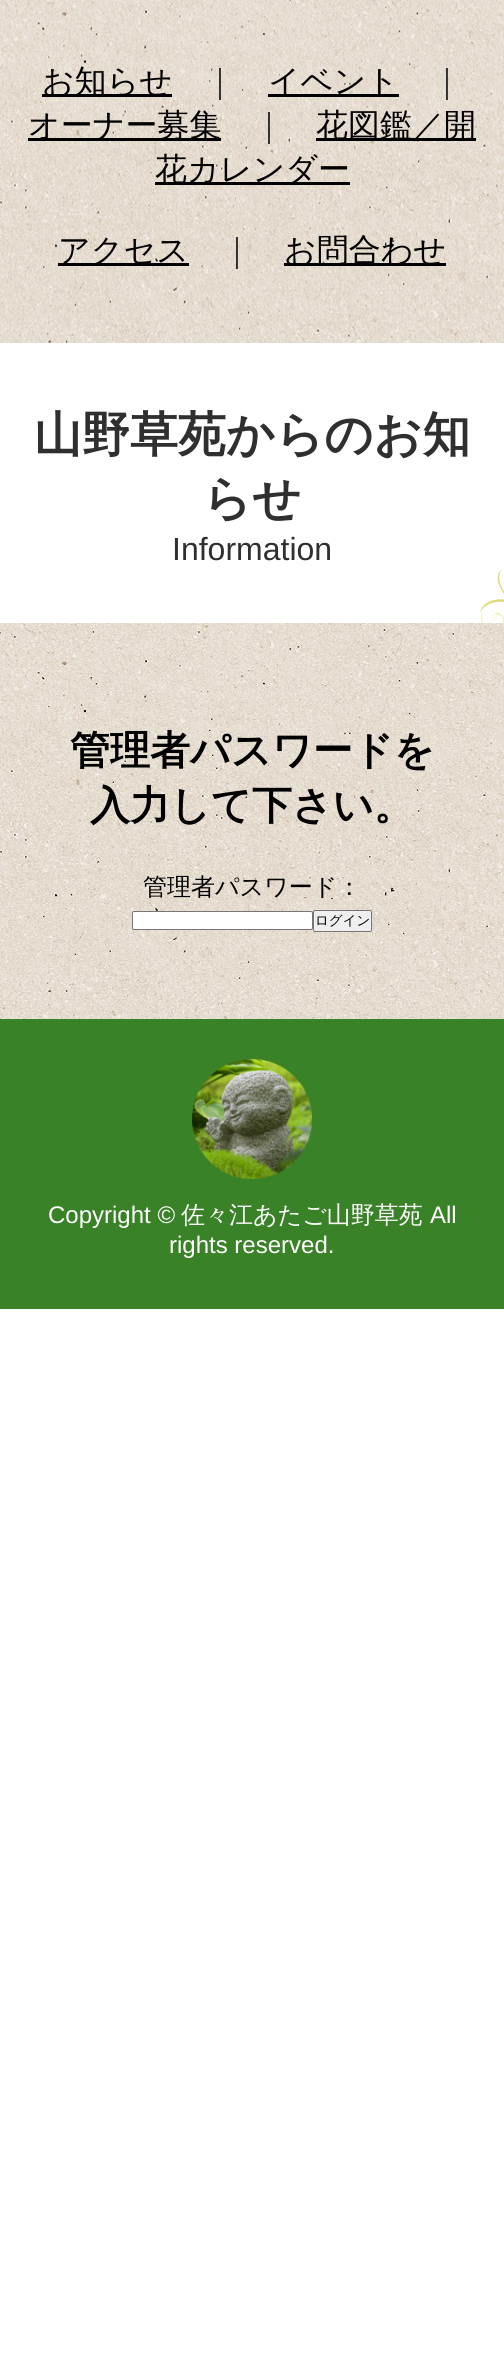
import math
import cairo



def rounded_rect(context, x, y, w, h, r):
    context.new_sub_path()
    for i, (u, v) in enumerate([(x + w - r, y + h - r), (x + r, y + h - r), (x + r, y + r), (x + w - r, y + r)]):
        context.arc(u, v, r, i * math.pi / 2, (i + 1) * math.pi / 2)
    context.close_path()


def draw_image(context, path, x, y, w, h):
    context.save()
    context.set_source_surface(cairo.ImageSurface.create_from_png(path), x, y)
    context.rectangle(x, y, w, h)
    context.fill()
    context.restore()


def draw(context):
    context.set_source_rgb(1, 1, 1)
    context.paint()
    draw_image(context, "images/1.png", 0, 0, 504, 343)
    context.set_source_rgb(0, 0, 0)
    context.rectangle(42, 94, 130, 3)
    context.fill()
    context.rectangle(268, 94, 131, 3)
    context.fill()
    context.rectangle(28, 138, 193, 3)
    context.fill()
    context.rectangle(316, 138, 160, 3)
    context.fill()
    context.rectangle(155, 182, 195, 3)
    context.fill()
    context.rectangle(58, 263, 131, 3)
    context.fill()
    context.rectangle(284, 263, 162, 3)
    context.fill()
    draw_image(context, "images/2.png", 480, 569, 24, 54)
    draw_image(context, "images/3.png", 0, 623, 504, 396)
    context.set_source_rgb(1, 1, 1)
    rounded_rect(context, 132.5, 911.5, 180, 18, 1.5)
    context.fill_preserve()
    context.set_source_rgb(118 / 255, 118 / 255, 118 / 255)
    context.set_line_width(1)
    context.stroke()
    context.set_source_rgb(239 / 255, 239 / 255, 239 / 255)
    rounded_rect(context, 313.5, 910.5, 58, 21, 1.5)
    context.fill_preserve()
    context.set_source_rgb(118 / 255, 118 / 255, 118 / 255)
    context.stroke()
    context.set_source_rgb(57 / 255, 130 / 255, 40 / 255)
    context.rectangle(0, 1019, 504, 290)
    context.fill()
    draw_image(context, "images/4.png", 192, 1059, 120, 120)
    context.select_font_face("WenQuanYi Zen Hei Medium")
    context.set_font_size(32)
    context.set_source_rgb(0, 0, 0)
    context.move_to(42, 92)
    context.show_text("お知らせ")
    context.set_source_rgb(47 / 255, 47 / 255, 47 / 255)
    context.move_to(204, 92)
    context.show_text("｜")
    context.set_source_rgb(0, 0, 0)
    context.move_to(268, 92)
    context.show_text("イベント")
    context.set_source_rgb(47 / 255, 47 / 255, 47 / 255)
    context.move_to(431, 92)
    context.show_text("｜")
    context.set_source_rgb(0, 0, 0)
    context.move_to(28, 136)
    context.show_text("オーナー募集")
    context.set_source_rgb(47 / 255, 47 / 255, 47 / 255)
    context.move_to(253, 136)
    context.show_text("｜")
    context.set_source_rgb(0, 0, 0)
    context.move_to(316, 136)
    context.show_text("花図鑑／開")
    context.move_to(155, 180)
    context.show_text("花カレンダー")
    context.move_to(58, 261)
    context.show_text("アクセス")
    context.set_source_rgb(47 / 255, 47 / 255, 47 / 255)
    context.move_to(221, 261)
    context.show_text("｜")
    context.set_source_rgb(0, 0, 0)
    context.move_to(284, 261)
    context.show_text("お問合わせ")
    context.select_font_face("WenQuanYi Zen Hei", cairo.FontSlant.NORMAL, cairo.FontWeight.BOLD)
    context.set_font_size(48)
    context.set_source_rgb(47 / 255, 47 / 255, 47 / 255)
    context.move_to(34, 451)
    context.show_text("山野草苑からのお知")
    context.move_to(203, 515)
    context.show_text("らせ")
    context.select_font_face("Liberation Sans")
    context.set_font_size(32)
    context.move_to(172, 560)
    context.show_text("Information")
    context.select_font_face("WenQuanYi Zen Hei", cairo.FontSlant.NORMAL, cairo.FontWeight.BOLD)
    context.set_font_size(40)
    context.set_source_rgb(0, 0, 0)
    context.move_to(70, 764)
    context.show_text("管理者パスワードを")
    context.move_to(90, 819)
    context.show_text("入力して下さい。")
    context.select_font_face("WenQuanYi Zen Hei Medium")
    context.set_font_size(24)
    context.move_to(143, 895)
    context.show_text("管理者パスワード：")
    context.set_font_size(13.5)
    context.move_to(315, 925)
    context.show_text("ログイン")
    context.select_font_face("Liberation Sans")
    context.set_font_size(24)
    context.set_source_rgb(1, 1, 1)
    context.move_to(48, 1223)
    context.show_text("Copyright ©")
    context.select_font_face("WenQuanYi Zen Hei Medium")
    context.move_to(181, 1223)
    context.show_text("佐々江あたご山野草苑")
    context.select_font_face("Liberation Sans")
    context.move_to(430, 1223)
    context.show_text("All")
    context.move_to(169, 1253)
    context.show_text("rights reserved.")


surface = cairo.ImageSurface(cairo.Format.RGB24, 504, 2367)
context = cairo.Context(surface)
options = cairo.FontOptions()
options.set_hint_metrics(cairo.HintMetrics.OFF)
options.set_hint_style(cairo.HintStyle.NONE)
context.set_font_options(options)
context.set_miter_limit(4)
draw(context)
surface.write_to_png("out.png")
